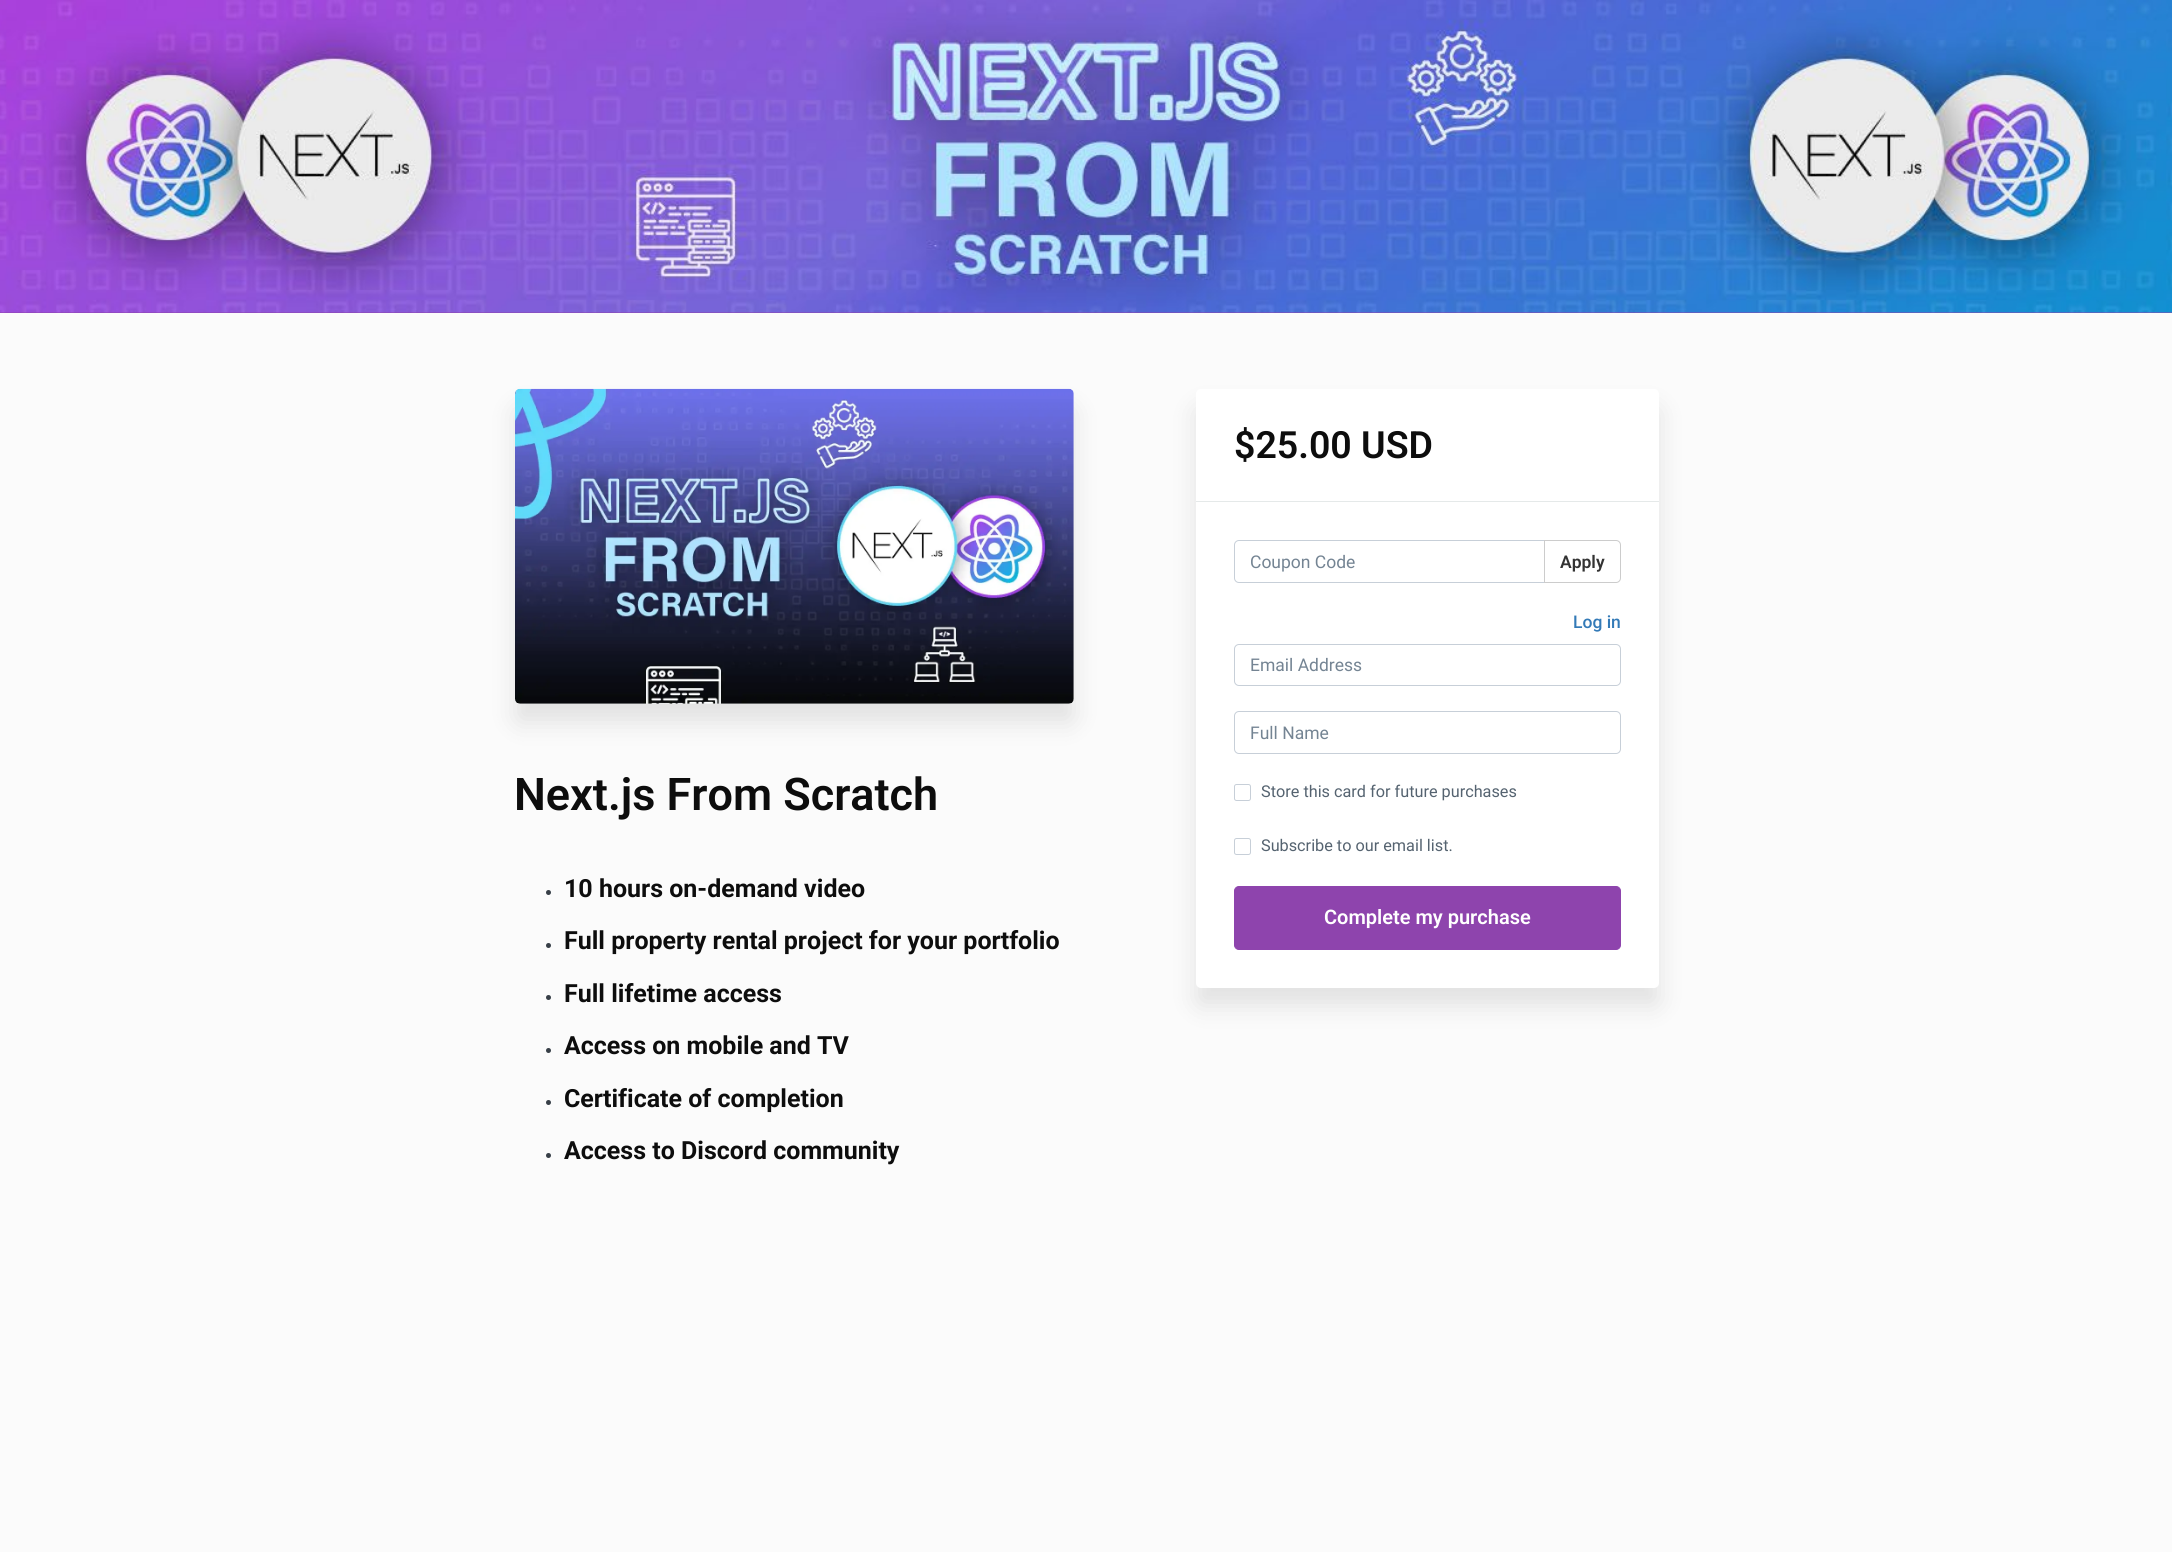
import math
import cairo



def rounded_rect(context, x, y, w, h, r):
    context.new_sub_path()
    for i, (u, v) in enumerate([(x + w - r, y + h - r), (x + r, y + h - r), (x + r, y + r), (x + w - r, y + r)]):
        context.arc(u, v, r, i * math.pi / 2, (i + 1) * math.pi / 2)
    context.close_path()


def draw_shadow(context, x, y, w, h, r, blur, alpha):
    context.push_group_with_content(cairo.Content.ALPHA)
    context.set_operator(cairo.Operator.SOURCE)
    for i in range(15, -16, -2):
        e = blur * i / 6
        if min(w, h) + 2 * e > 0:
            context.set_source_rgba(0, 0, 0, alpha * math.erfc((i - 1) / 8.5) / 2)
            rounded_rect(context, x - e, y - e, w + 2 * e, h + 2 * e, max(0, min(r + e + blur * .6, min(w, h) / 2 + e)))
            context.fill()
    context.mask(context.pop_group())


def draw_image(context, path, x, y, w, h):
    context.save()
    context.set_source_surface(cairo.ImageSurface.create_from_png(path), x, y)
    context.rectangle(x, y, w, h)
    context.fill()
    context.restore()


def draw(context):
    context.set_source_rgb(251 / 255, 251 / 255, 251 / 255)
    context.paint()
    context.set_source_rgb(142 / 255, 68 / 255, 173 / 255)
    context.rectangle(0, 312, 2172, 1)
    context.fill()
    draw_image(context, "images/1.png", 0, 0, 2172, 313)
    context.set_source_rgb(0, 0, 0)
    draw_shadow(context, 1196, 408, 463, 598, 5, 12.5, 0.1)
    context.set_source_rgb(1, 1, 1)
    rounded_rect(context, 1196, 389, 463, 599, 5)
    context.fill()
    context.set_source_rgb(229 / 255, 233 / 255, 233 / 255)
    context.rectangle(1196, 501, 463, 1)
    context.fill()
    context.new_path()
    context.move_to(1239, 540.5)
    context.line_to(1544.5, 540.5)
    context.line_to(1544.5, 582.5)
    context.line_to(1239, 582.5)
    context.curve_to(1236.5, 582.5, 1234.5, 580.5, 1234.5, 578)
    context.line_to(1234.5, 545)
    context.curve_to(1234.5, 542.5, 1236.5, 540.5, 1239, 540.5)
    context.close_path()
    context.set_source_rgb(199 / 255, 207 / 255, 216 / 255)
    context.set_line_width(1)
    context.stroke()
    context.set_source_rgb(1, 1, 1)
    context.new_path()
    context.move_to(1544.5, 540.5)
    context.line_to(1616, 540.5)
    context.curve_to(1618.5, 540.5, 1620.5, 542.5, 1620.5, 545)
    context.line_to(1620.5, 578)
    context.curve_to(1620.5, 580.5, 1618.5, 582.5, 1616, 582.5)
    context.line_to(1544.5, 582.5)
    context.close_path()
    context.fill_preserve()
    context.set_source_rgb(204 / 255, 204 / 255, 204 / 255)
    context.stroke()
    rounded_rect(context, 1234.5, 644.5, 386, 41, 4.5)
    context.set_source_rgb(199 / 255, 207 / 255, 216 / 255)
    context.stroke()
    rounded_rect(context, 1234.5, 711.5, 386, 42, 4.5)
    context.stroke()
    rounded_rect(context, 1234.5, 784.5, 16, 16, 2)
    context.stroke()
    rounded_rect(context, 1234.5, 838.5, 16, 16, 2)
    context.stroke()
    context.set_source_rgb(142 / 255, 68 / 255, 173 / 255)
    rounded_rect(context, 1234.5, 886.5, 386, 63, 4.5)
    context.fill_preserve()
    context.stroke()
    context.set_source_rgb(0, 0, 0)
    draw_shadow(context, 515, 408, 559, 315, 5, 12.5, 0.1)
    draw_image(context, "images/2.png", 515, 388, 559, 316)
    context.set_source_rgb(55 / 255, 63 / 255, 71 / 255)
    context.arc(548.5, 892.5, 2.5, 0, 2 * math.pi)
    context.fill()
    context.arc(548.5, 945.5, 2.5, 0, 2 * math.pi)
    context.fill()
    context.arc(548.5, 997.5, 2.5, 0, 2 * math.pi)
    context.fill()
    context.arc(548.5, 1050.5, 2.5, 0, 2 * math.pi)
    context.fill()
    context.arc(548.5, 1102.5, 2.5, 0, 2 * math.pi)
    context.fill()
    context.arc(548.5, 1155.5, 2.5, 0, 2 * math.pi)
    context.fill()
    context.select_font_face("Roboto SemiBold")
    context.set_font_size(37.5)
    context.set_source_rgb(13 / 255, 13 / 255, 13 / 255)
    context.move_to(1234, 458)
    context.show_text("$25.00 USD")
    context.select_font_face("Roboto")
    context.set_font_size(17.5)
    context.set_source_rgb(116 / 255, 132 / 255, 147 / 255)
    context.move_to(1250, 568)
    context.show_text("Coupon Code")
    context.select_font_face("Roboto SemiBold")
    context.set_source_rgb(51 / 255, 51 / 255, 51 / 255)
    context.move_to(1560, 568)
    context.show_text("Apply")
    context.select_font_face("Roboto Medium")
    context.set_source_rgb(51 / 255, 122 / 255, 183 / 255)
    context.move_to(1573, 628)
    context.show_text("Log in")
    context.select_font_face("Roboto")
    context.set_source_rgb(116 / 255, 132 / 255, 147 / 255)
    context.move_to(1250, 671)
    context.show_text("Email Address")
    context.move_to(1250, 739)
    context.show_text("Full Name")
    context.set_font_size(16.25)
    context.set_source_rgb(85 / 255, 99 / 255, 112 / 255)
    context.move_to(1261, 797)
    context.show_text("Store this card for future purchases")
    context.move_to(1261, 851)
    context.show_text("Subscribe to our email list.")
    context.select_font_face("Roboto SemiBold")
    context.set_font_size(20)
    context.set_source_rgb(1, 1, 1)
    context.move_to(1324, 924)
    context.show_text("Complete my purchase")
    context.set_font_size(45)
    context.set_source_rgb(13 / 255, 13 / 255, 13 / 255)
    context.move_to(514, 810)
    context.show_text("Next.js From Scratch")
    context.select_font_face("Roboto", cairo.FontSlant.NORMAL, cairo.FontWeight.BOLD)
    context.set_font_size(25)
    context.move_to(564, 897)
    context.show_text("10 hours on-demand video")
    context.move_to(564, 949)
    context.show_text("Full property rental project for your portfolio")
    context.move_to(564, 1002)
    context.show_text("Full lifetime access")
    context.move_to(564, 1054)
    context.show_text("Access on mobile and TV")
    context.move_to(564, 1107)
    context.show_text("Certificate of completion")
    context.move_to(564, 1159)
    context.show_text("Access to Discord community")


surface = cairo.ImageSurface(cairo.Format.RGB24, 2172, 1552)
context = cairo.Context(surface)
options = cairo.FontOptions()
options.set_hint_metrics(cairo.HintMetrics.OFF)
options.set_hint_style(cairo.HintStyle.NONE)
context.set_font_options(options)
context.set_miter_limit(4)
draw(context)
surface.write_to_png("out.png")
